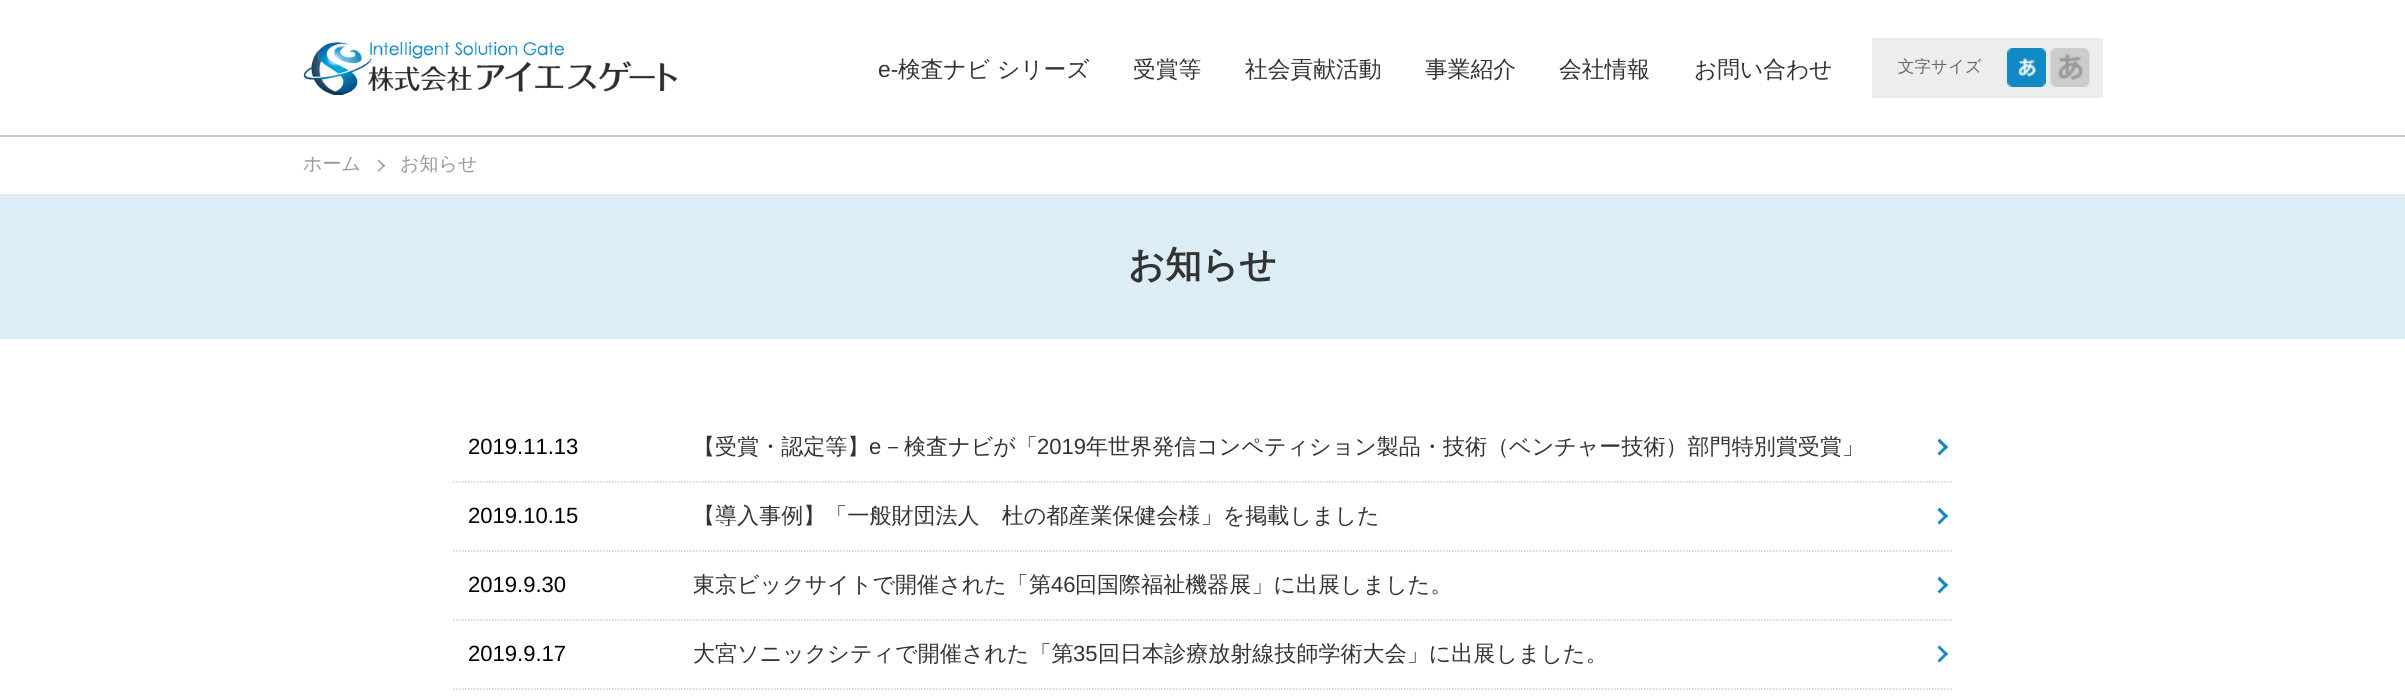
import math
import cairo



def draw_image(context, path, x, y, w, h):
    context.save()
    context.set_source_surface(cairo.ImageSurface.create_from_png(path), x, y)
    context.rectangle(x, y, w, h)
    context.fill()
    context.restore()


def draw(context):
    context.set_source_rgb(1, 1, 1)
    context.paint()
    context.set_source_rgb(204 / 255, 204 / 255, 204 / 255)
    context.rectangle(0, 135, 2405, 2)
    context.fill()
    draw_image(context, "images/1.png", 303, 42, 375, 53)
    context.set_source_rgb(237 / 255, 237 / 255, 237 / 255)
    context.rectangle(1872, 38, 231, 60)
    context.fill()
    draw_image(context, "images/2.png", 2007, 48, 39, 39)
    draw_image(context, "images/3.png", 2050, 48, 40, 39)
    context.set_source_rgb(153 / 255, 153 / 255, 153 / 255)
    context.new_path()
    context.move_to(378.5, 159.5)
    context.line_to(385, 165.5)
    context.line_to(384, 167)
    context.line_to(377.5, 160.5)
    context.close_path()
    context.fill()
    context.new_path()
    context.move_to(384, 164.5)
    context.line_to(385, 165.5)
    context.line_to(378.5, 172)
    context.line_to(377.5, 171)
    context.close_path()
    context.fill()
    context.set_source_rgb(220 / 255, 237 / 255, 246 / 255)
    context.rectangle(0, 194, 2405, 145)
    context.fill()
    context.new_path()
    context.move_to(453, 482)
    context.line_to(1953, 482)
    context.set_source_rgb(204 / 255, 204 / 255, 204 / 255)
    context.set_line_width(1.5)
    context.set_dash([1.5, 1.5])
    context.stroke()
    context.set_source_rgb(17 / 255, 137 / 255, 196 / 255)
    context.new_path()
    context.move_to(1939.5, 438.5)
    context.line_to(1948, 447)
    context.line_to(1946, 449.5)
    context.line_to(1937.5, 441)
    context.close_path()
    context.fill()
    context.new_path()
    context.move_to(1946, 445)
    context.line_to(1948, 447)
    context.line_to(1939.5, 455.5)
    context.line_to(1937.5, 453.5)
    context.close_path()
    context.fill()
    context.new_path()
    context.move_to(453, 551)
    context.line_to(1953, 551)
    context.set_source_rgb(204 / 255, 204 / 255, 204 / 255)
    context.stroke()
    context.set_source_rgb(17 / 255, 137 / 255, 196 / 255)
    context.new_path()
    context.move_to(1939.5, 507.5)
    context.line_to(1948, 516)
    context.line_to(1946, 518.5)
    context.line_to(1937.5, 510)
    context.close_path()
    context.fill()
    context.new_path()
    context.move_to(1946, 514)
    context.line_to(1948, 516)
    context.line_to(1939.5, 524.5)
    context.line_to(1937.5, 522.5)
    context.close_path()
    context.fill()
    context.new_path()
    context.move_to(453, 620)
    context.line_to(1953, 620)
    context.set_source_rgb(204 / 255, 204 / 255, 204 / 255)
    context.stroke()
    context.set_source_rgb(17 / 255, 137 / 255, 196 / 255)
    context.new_path()
    context.move_to(1939.5, 576.5)
    context.line_to(1948, 585)
    context.line_to(1946, 587.5)
    context.line_to(1937.5, 579)
    context.close_path()
    context.fill()
    context.new_path()
    context.move_to(1946, 583)
    context.line_to(1948, 585)
    context.line_to(1939.5, 593.5)
    context.line_to(1937.5, 591.5)
    context.close_path()
    context.fill()
    context.new_path()
    context.move_to(453, 689)
    context.line_to(1953, 689)
    context.set_source_rgb(204 / 255, 204 / 255, 204 / 255)
    context.stroke()
    context.set_source_rgb(17 / 255, 137 / 255, 196 / 255)
    context.new_path()
    context.move_to(1939.5, 645.5)
    context.line_to(1948, 654)
    context.line_to(1946, 656)
    context.line_to(1937.5, 647.5)
    context.close_path()
    context.fill()
    context.new_path()
    context.move_to(1946, 652)
    context.line_to(1948, 654)
    context.line_to(1939.5, 662.5)
    context.line_to(1937.5, 660.5)
    context.close_path()
    context.fill()
    context.select_font_face("Liberation Sans")
    context.set_font_size(22.75)
    context.set_source_rgb(51 / 255, 51 / 255, 51 / 255)
    context.move_to(878, 77)
    context.show_text("e-")
    context.select_font_face("WenQuanYi Zen Hei Medium")
    context.move_to(898, 77)
    context.show_text("検査ナビ シリーズ")
    context.move_to(1133, 77)
    context.show_text("受賞等")
    context.move_to(1245, 77)
    context.show_text("社会貢献活動")
    context.move_to(1425, 77)
    context.show_text("事業紹介")
    context.move_to(1559, 77)
    context.show_text("会社情報")
    context.move_to(1694, 77)
    context.show_text("お問い合わせ")
    context.set_font_size(16.5)
    context.set_source_rgb(102 / 255, 102 / 255, 102 / 255)
    context.move_to(1898, 72)
    context.show_text("文字サイズ")
    context.set_font_size(19)
    context.set_source_rgb(153 / 255, 153 / 255, 153 / 255)
    context.move_to(303, 170)
    context.show_text("ホーム")
    context.move_to(400, 170)
    context.show_text("お知らせ")
    context.select_font_face("WenQuanYi Zen Hei", cairo.FontSlant.NORMAL, cairo.FontWeight.BOLD)
    context.set_font_size(36.5)
    context.set_source_rgb(51 / 255, 51 / 255, 51 / 255)
    context.move_to(1128, 277)
    context.show_text("お知らせ")
    context.select_font_face("Liberation Sans")
    context.set_font_size(22.05)
    context.set_source_rgb(0, 0, 0)
    context.move_to(468, 454)
    context.show_text("2019.11.13")
    context.select_font_face("WenQuanYi Zen Hei Medium")
    context.set_source_rgb(51 / 255, 51 / 255, 51 / 255)
    context.move_to(693, 454)
    context.show_text("【受賞・認定等】")
    context.select_font_face("Liberation Sans")
    context.move_to(869, 454)
    context.show_text("e")
    context.select_font_face("WenQuanYi Zen Hei Medium")
    context.move_to(882, 454)
    context.show_text("－検査ナビが「")
    context.select_font_face("Liberation Sans")
    context.move_to(1037, 454)
    context.show_text("2019")
    context.select_font_face("WenQuanYi Zen Hei Medium")
    context.move_to(1086, 454)
    context.show_text("年世界発信コンペティション製品・技術（ベンチャー技術）部門特別賞受賞」")
    context.select_font_face("Liberation Sans")
    context.set_source_rgb(0, 0, 0)
    context.move_to(468, 523)
    context.show_text("2019.10.15")
    context.select_font_face("WenQuanYi Zen Hei Medium")
    context.set_source_rgb(51 / 255, 51 / 255, 51 / 255)
    context.move_to(693, 523)
    context.show_text("【導入事例】「一般財団法人　杜の都産業保健会様」を掲載しました")
    context.select_font_face("Liberation Sans")
    context.set_source_rgb(0, 0, 0)
    context.move_to(468, 592)
    context.show_text("2019.9.30")
    context.select_font_face("WenQuanYi Zen Hei Medium")
    context.set_source_rgb(51 / 255, 51 / 255, 51 / 255)
    context.move_to(693, 592)
    context.show_text("東京ビックサイトで開催された「第")
    context.select_font_face("Liberation Sans")
    context.move_to(1051, 592)
    context.show_text("46")
    context.select_font_face("WenQuanYi Zen Hei Medium")
    context.move_to(1075, 592)
    context.show_text("回国際福祉機器展」に出展しました。")
    context.select_font_face("Liberation Sans")
    context.set_source_rgb(0, 0, 0)
    context.move_to(468, 661)
    context.show_text("2019.9.17")
    context.select_font_face("WenQuanYi Zen Hei Medium")
    context.set_source_rgb(51 / 255, 51 / 255, 51 / 255)
    context.move_to(693, 661)
    context.show_text("大宮ソニックシティで開催された「第")
    context.select_font_face("Liberation Sans")
    context.move_to(1073, 661)
    context.show_text("35")
    context.select_font_face("WenQuanYi Zen Hei Medium")
    context.move_to(1098, 661)
    context.show_text("回日本診療放射線技師学術大会」に出展しました。")


surface = cairo.ImageSurface(cairo.Format.RGB24, 2405, 697)
context = cairo.Context(surface)
options = cairo.FontOptions()
options.set_hint_metrics(cairo.HintMetrics.OFF)
options.set_hint_style(cairo.HintStyle.NONE)
context.set_font_options(options)
context.set_miter_limit(4)
draw(context)
surface.write_to_png("out.png")
